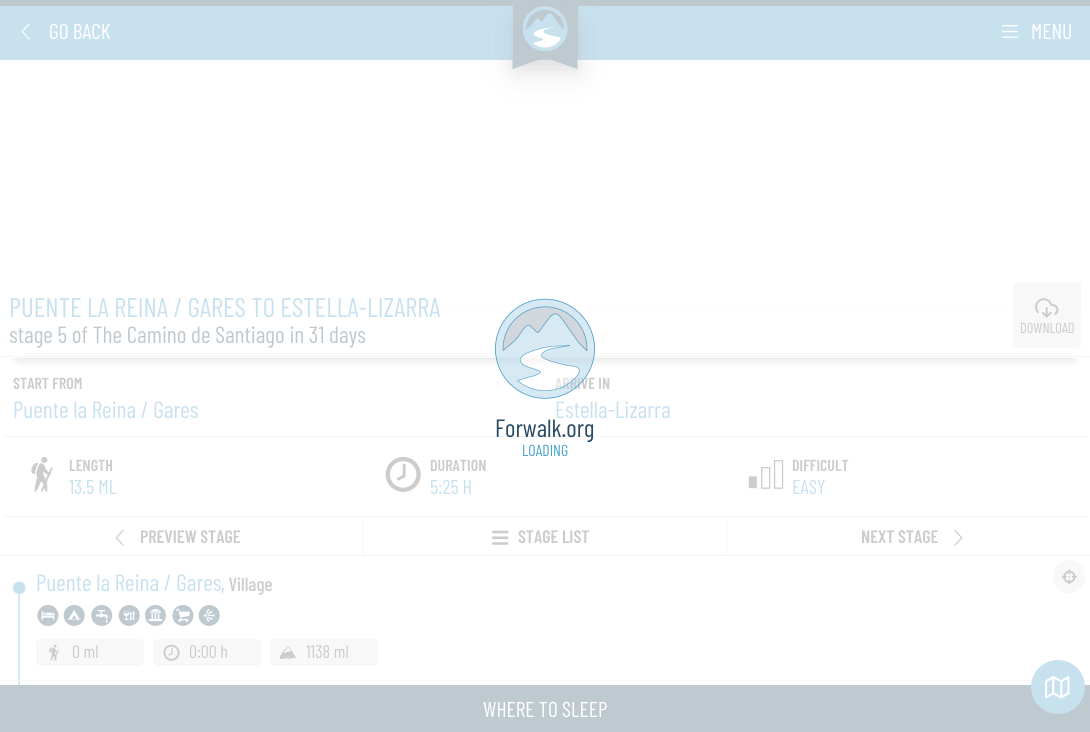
import math
import cairo



def rounded_rect(context, x, y, w, h, r):
    context.new_sub_path()
    for i, (u, v) in enumerate([(x + w - r, y + h - r), (x + r, y + h - r), (x + r, y + r), (x + w - r, y + r)]):
        context.arc(u, v, r, i * math.pi / 2, (i + 1) * math.pi / 2)
    context.close_path()


def draw_shadow(context, x, y, w, h, r, blur, alpha):
    context.push_group_with_content(cairo.Content.ALPHA)
    context.set_operator(cairo.Operator.SOURCE)
    for i in range(15, -16, -2):
        e = blur * i / 6
        if min(w, h) + 2 * e > 0:
            context.set_source_rgba(0, 0, 0, alpha * math.erfc((i - 1) / 8.5) / 2)
            rounded_rect(context, x - e, y - e, w + 2 * e, h + 2 * e, max(0, min(r + e + blur * .6, min(w, h) / 2 + e)))
            context.fill()
    context.mask(context.pop_group())


def draw_image(context, path, x, y, w, h):
    context.save()
    context.set_source_surface(cairo.ImageSurface.create_from_png(path), x, y)
    context.rectangle(x, y, w, h)
    context.fill()
    context.restore()


def draw(context):
    context.set_source_rgb(1, 1, 1)
    context.paint()
    context.set_source_rgb(200 / 255, 225 / 255, 239 / 255)
    context.rectangle(0, 6, 1090, 54)
    context.fill()
    context.set_source_rgb(191 / 255, 201 / 255, 208 / 255)
    context.rectangle(0, 0, 1090, 6)
    context.fill()
    draw_image(context, "images/1.png", 21, 23, 9, 17)
    context.set_source_rgb(179 / 255, 179 / 255, 179 / 255)
    draw_shadow(context, 513, 18, 65, 51, 0, 5.5, 0.22)
    draw_shadow(context, 513, 23, 65, 51, 0, 16, 0.25)
    context.set_source_rgb(191 / 255, 201 / 255, 208 / 255)
    context.rectangle(513, 6, 65, 52)
    context.fill()
    draw_image(context, "images/2.png", 523, 6, 45, 45)
    context.new_path()
    context.move_to(577.5, 57.5)
    context.line_to(577.5, 69)
    context.line_to(545, 57.5)
    context.close_path()
    context.fill()
    context.new_path()
    context.move_to(512.5, 69)
    context.line_to(512.5, 57.5)
    context.line_to(545, 57.5)
    context.close_path()
    context.fill()
    draw_image(context, "images/3.png", 1001, 25, 17, 13)
    context.set_source_rgb(213 / 255, 213 / 255, 213 / 255)
    draw_shadow(context, 18, 316, 1055, 42, 0, 5.5, 1)
    context.set_source_rgb(1, 1, 1)
    context.rectangle(9, 307, 1073, 51)
    context.fill()
    context.set_source_rgb(245 / 255, 245 / 255, 245 / 255)
    context.rectangle(0, 356, 1090, 1)
    context.fill()
    context.set_source_rgb(248 / 255, 248 / 255, 248 / 255)
    context.new_path()
    context.move_to(1013, 283)
    context.line_to(1081, 283)
    context.line_to(1081, 342)
    context.curve_to(1081, 345.5, 1078.5, 348, 1075, 348)
    context.line_to(1019, 348)
    context.curve_to(1015.5, 348, 1013, 345.5, 1013, 342)
    context.close_path()
    context.fill()
    draw_image(context, "images/4.png", 1035, 298, 24, 20)
    context.set_source_rgb(245 / 255, 245 / 255, 245 / 255)
    context.rectangle(3, 436, 1085, 1)
    context.fill()
    context.rectangle(3, 516, 1085, 1)
    context.fill()
    draw_image(context, "images/5.png", 31, 457, 22, 35)
    draw_image(context, "images/6.png", 385, 456, 36, 36)
    draw_image(context, "images/7.png", 748, 460, 36, 29)
    context.rectangle(0, 555, 1090, 1)
    context.fill()
    context.rectangle(363, 519, 1, 36)
    context.fill()
    draw_image(context, "images/8.png", 115, 529, 9, 17)
    context.rectangle(726, 519, 1, 36)
    context.fill()
    draw_image(context, "images/9.png", 492, 530, 17, 15)
    draw_image(context, "images/10.png", 954, 529, 9, 17)
    context.rectangle(0, 680, 1090, 1)
    context.fill()
    context.set_source_rgb(214 / 255, 233 / 255, 243 / 255)
    context.rectangle(18, 588, 2, 92)
    context.fill()
    context.set_source_rgb(200 / 255, 225 / 255, 239 / 255)
    context.new_path()
    context.move_to(25.5, 588)
    context.curve_to(25.5, 596, 13, 596, 13, 588)
    context.curve_to(13, 579.5, 25.5, 579.5, 25.5, 588)
    context.close_path()
    context.fill()
    draw_image(context, "images/11.png", 37, 604, 22, 22)
    draw_image(context, "images/12.png", 63, 604, 22, 22)
    draw_image(context, "images/13.png", 91, 604, 22, 22)
    draw_image(context, "images/14.png", 118, 604, 22, 22)
    draw_image(context, "images/15.png", 144, 604, 22, 22)
    draw_image(context, "images/16.png", 172, 604, 22, 22)
    draw_image(context, "images/17.png", 198, 604, 22, 22)
    context.set_source_rgb(248 / 255, 248 / 255, 248 / 255)
    rounded_rect(context, 36, 639, 108, 27, 5)
    context.fill()
    draw_image(context, "images/18.png", 49, 644, 10, 17)
    rounded_rect(context, 153, 639, 108, 27, 5)
    context.fill()
    draw_image(context, "images/19.png", 163, 644, 17, 17)
    rounded_rect(context, 270, 639, 108, 27, 5)
    context.fill()
    draw_image(context, "images/20.png", 279, 646, 17, 13)
    rounded_rect(context, 1053, 560, 32, 33, 16)
    context.fill()
    draw_image(context, "images/21.png", 1062, 569, 15, 15)
    context.new_path()
    context.move_to(19, 681)
    context.line_to(18.5, 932.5)
    context.set_source_rgb(200 / 255, 225 / 255, 239 / 255)
    context.set_line_width(1.5)
    context.stroke()
    context.set_source_rgb(191 / 255, 201 / 255, 208 / 255)
    context.rectangle(0, 685, 1090, 47)
    context.fill()
    context.set_source_rgb(200 / 255, 225 / 255, 239 / 255)
    context.arc(1058, 687, 27, 0, 2 * math.pi)
    context.fill()
    draw_image(context, "images/22.png", 1045, 676, 25, 23)
    context.select_font_face("Barlow Condensed")
    context.set_font_size(21.5)
    context.set_source_rgb(1, 1, 1)
    context.move_to(49, 39)
    context.show_text("GO BACK")
    context.move_to(1031, 39)
    context.show_text("MENU")
    context.set_font_size(27)
    context.set_source_rgb(200 / 255, 225 / 255, 239 / 255)
    context.move_to(9, 317)
    context.show_text("PUENTE LA REINA / GARES TO ESTELLA-LIZARRA")
    context.set_font_size(23.4)
    context.set_source_rgb(191 / 255, 201 / 255, 208 / 255)
    context.move_to(9, 343)
    context.show_text("stage 5 of The Camino de Santiago in 31 days")
    context.set_font_size(14.5)
    context.set_source_rgb(204 / 255, 204 / 255, 204 / 255)
    context.move_to(1020, 333)
    context.show_text("DOWNLOAD")
    context.select_font_face("Barlow Condensed SemiBold")
    context.set_font_size(16)
    context.move_to(13, 389)
    context.show_text("START FROM")
    context.select_font_face("Barlow Condensed")
    context.set_font_size(23.4)
    context.set_source_rgb(200 / 255, 225 / 255, 239 / 255)
    context.move_to(13, 418)
    context.show_text("Puente la Reina / Gares")
    context.select_font_face("Barlow Condensed SemiBold")
    context.set_font_size(16)
    context.set_source_rgb(204 / 255, 204 / 255, 204 / 255)
    context.move_to(555, 389)
    context.show_text("ARRIVE IN")
    context.select_font_face("Barlow Condensed")
    context.set_font_size(23.4)
    context.set_source_rgb(200 / 255, 225 / 255, 239 / 255)
    context.move_to(555, 418)
    context.show_text("Estella-Lizarra")
    context.select_font_face("Barlow Condensed SemiBold")
    context.set_font_size(16)
    context.set_source_rgb(204 / 255, 204 / 255, 204 / 255)
    context.move_to(69, 471)
    context.show_text("LENGTH")
    context.select_font_face("Barlow Condensed")
    context.set_font_size(20)
    context.set_source_rgb(200 / 255, 225 / 255, 239 / 255)
    context.move_to(69, 494)
    context.show_text("13.5 ML")
    context.select_font_face("Barlow Condensed SemiBold")
    context.set_font_size(16)
    context.set_source_rgb(204 / 255, 204 / 255, 204 / 255)
    context.move_to(430, 471)
    context.show_text("DURATION")
    context.select_font_face("Barlow Condensed")
    context.set_font_size(20)
    context.set_source_rgb(200 / 255, 225 / 255, 239 / 255)
    context.move_to(430, 494)
    context.show_text("5:25 H")
    context.select_font_face("Barlow Condensed SemiBold")
    context.set_font_size(16)
    context.set_source_rgb(204 / 255, 204 / 255, 204 / 255)
    context.move_to(792, 471)
    context.show_text("DIFFICULT")
    context.select_font_face("Barlow Condensed")
    context.set_font_size(20)
    context.set_source_rgb(200 / 255, 225 / 255, 239 / 255)
    context.move_to(792, 494)
    context.show_text("EASY")
    context.select_font_face("Barlow Condensed SemiBold")
    context.set_font_size(18)
    context.set_source_rgb(204 / 255, 204 / 255, 204 / 255)
    context.move_to(140, 543)
    context.show_text("PREVIEW STAGE")
    context.move_to(518, 543)
    context.show_text("STAGE LIST")
    context.move_to(861, 543)
    context.show_text("NEXT STAGE")
    context.select_font_face("Barlow Condensed")
    context.set_font_size(23.4)
    context.set_source_rgb(200 / 255, 225 / 255, 239 / 255)
    context.move_to(36, 591)
    context.show_text("Puente la Reina / Gares")
    context.select_font_face("Barlow Condensed Medium")
    context.set_font_size(19)
    context.set_source_rgb(204 / 255, 204 / 255, 204 / 255)
    context.move_to(221, 591)
    context.show_text(", Village")
    context.select_font_face("Barlow Condensed")
    context.set_font_size(18)
    context.move_to(72, 658)
    context.show_text("0 ml")
    context.move_to(189, 658)
    context.show_text("0:00 h")
    context.move_to(306, 658)
    context.show_text("1138 ml")
    context.set_font_size(21.5)
    context.set_source_rgb(1, 1, 1)
    context.move_to(483, 717)
    context.show_text("WHERE TO SLEEP")
    draw_image(context, "images/23.png", 495, 298, 100, 101)
    context.set_font_size(25)
    context.set_source_rgb(41 / 255, 75 / 255, 98 / 255)
    context.move_to(495, 437)
    context.show_text("Forwalk.org")
    context.set_font_size(16)
    context.set_source_rgb(76 / 255, 162 / 255, 201 / 255)
    context.move_to(522, 456)
    context.show_text("LOADING")


surface = cairo.ImageSurface(cairo.Format.RGB24, 1090, 732)
context = cairo.Context(surface)
options = cairo.FontOptions()
options.set_hint_metrics(cairo.HintMetrics.OFF)
options.set_hint_style(cairo.HintStyle.NONE)
context.set_font_options(options)
context.set_miter_limit(4)
draw(context)
surface.write_to_png("out.png")
